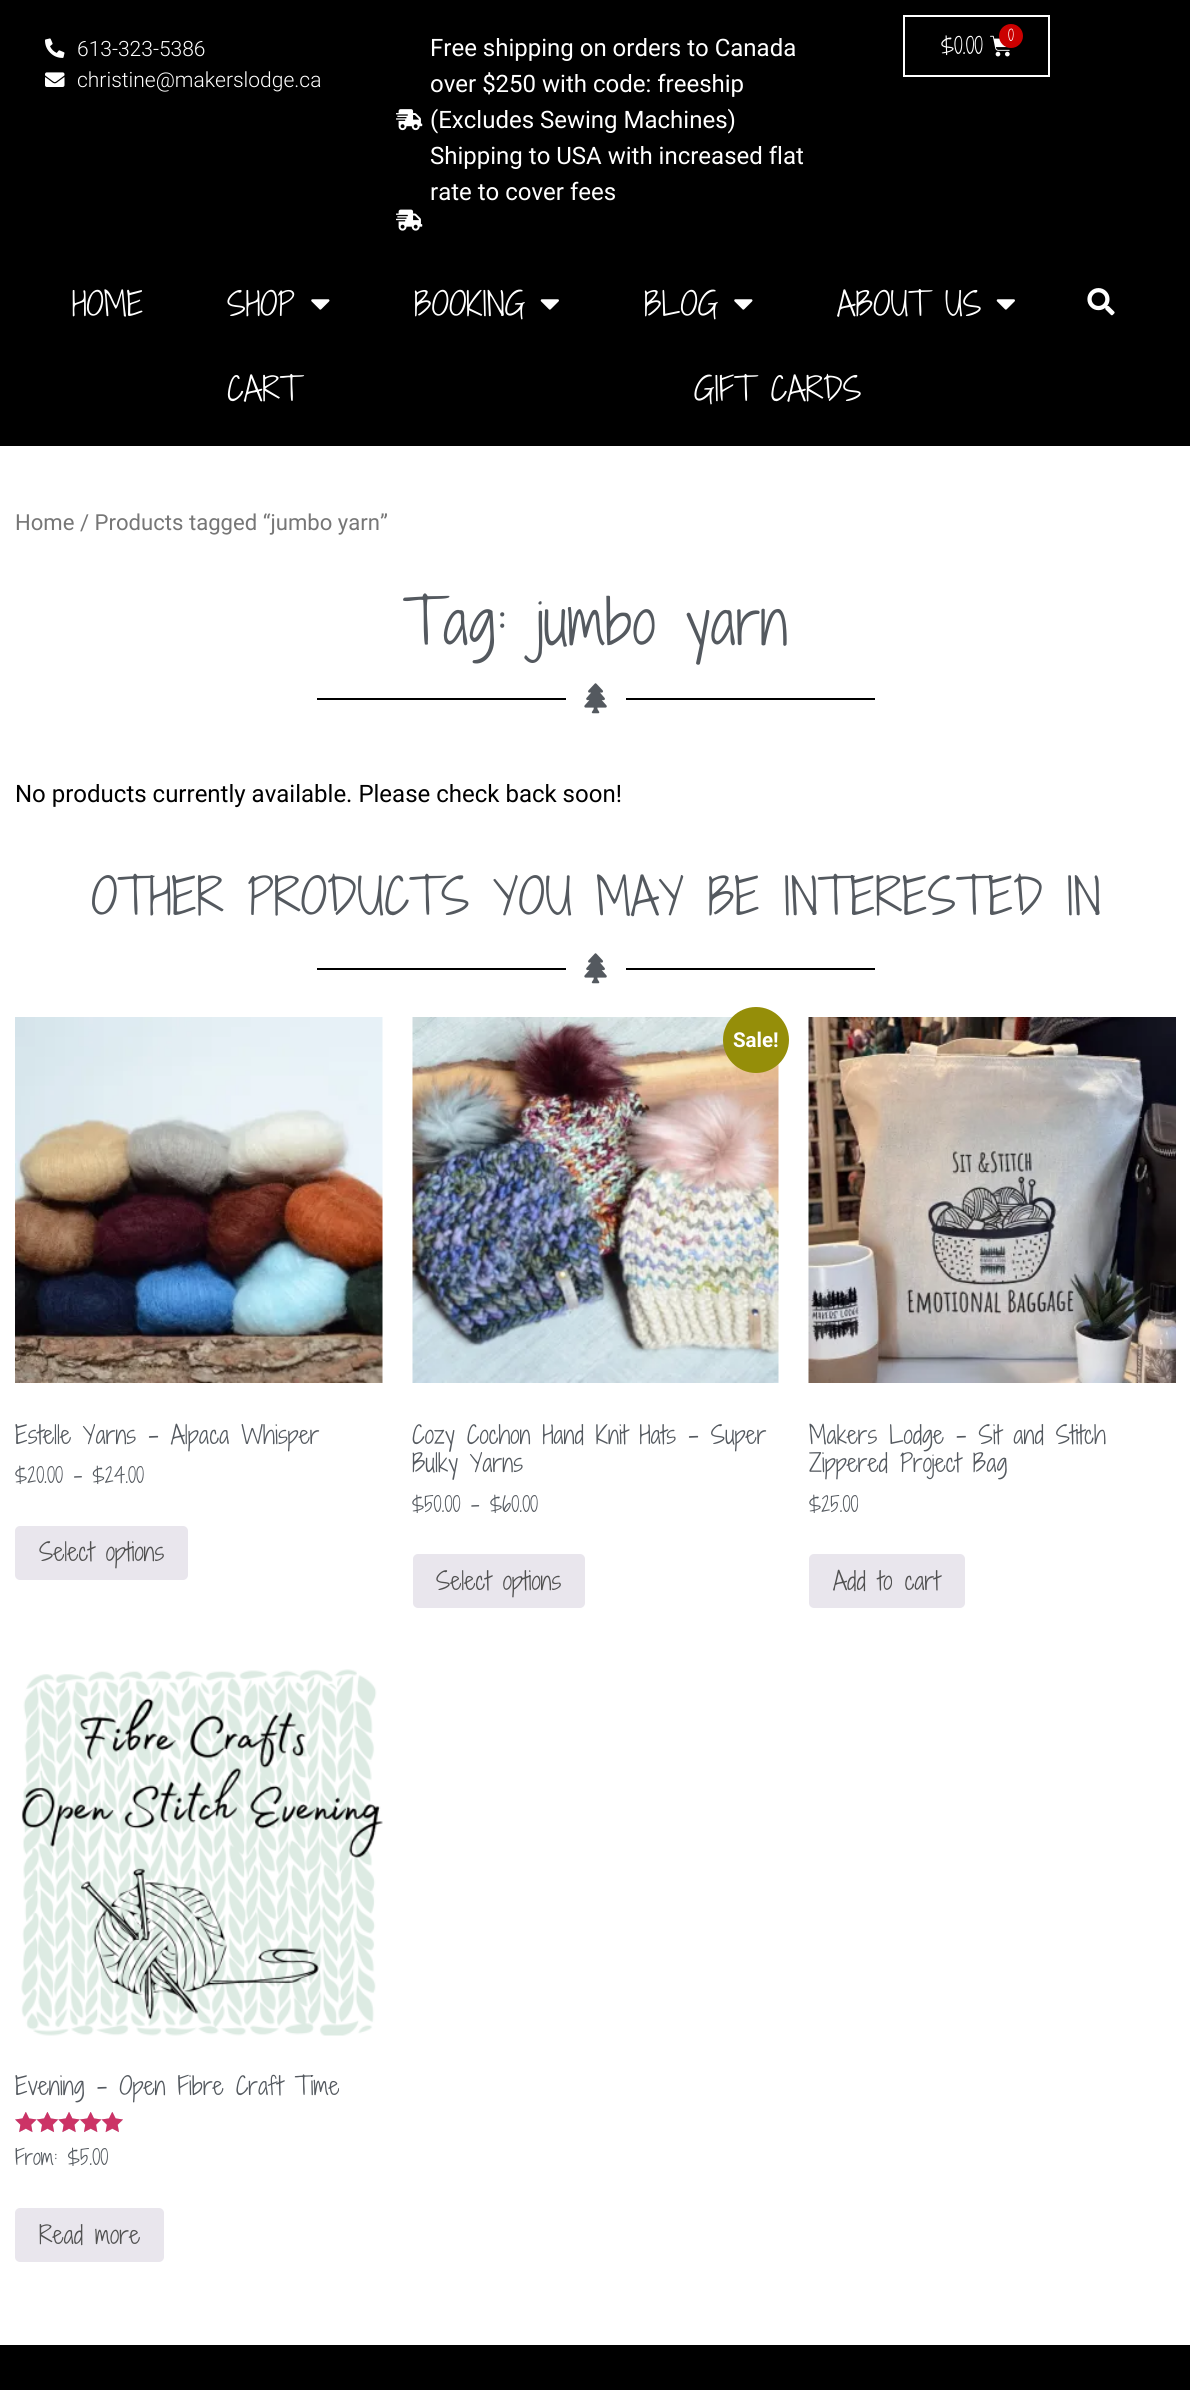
import math
import cairo



def rounded_rect(context, x, y, w, h, r):
    context.new_sub_path()
    for i, (u, v) in enumerate([(x + w - r, y + h - r), (x + r, y + h - r), (x + r, y + r), (x + w - r, y + r)]):
        context.arc(u, v, r, i * math.pi / 2, (i + 1) * math.pi / 2)
    context.close_path()


def draw_image(context, path, x, y, w, h):
    context.save()
    context.set_source_surface(cairo.ImageSurface.create_from_png(path), x, y)
    context.rectangle(x, y, w, h)
    context.fill()
    context.restore()


def draw(context):
    context.set_source_rgb(1, 1, 1)
    context.paint()
    context.set_source_rgb(0, 0, 0)
    context.rectangle(0, 0, 1190, 446)
    context.fill()
    draw_image(context, "images/1.png", 45, 38, 20, 20)
    draw_image(context, "images/2.png", 45, 72, 20, 15)
    draw_image(context, "images/3.png", 396, 109, 27, 22)
    draw_image(context, "images/4.png", 396, 209, 27, 22)
    context.rectangle(904, 16, 145, 60)
    context.set_source_rgb(1, 1, 1)
    context.stroke()
    draw_image(context, "images/5.png", 990, 35, 20, 22)
    context.set_source_rgb(203 / 255, 0, 0)
    context.arc(1011, 36, 12, 0, 2 * math.pi)
    context.fill()
    draw_image(context, "images/6.png", 311, 299, 19, 11)
    draw_image(context, "images/7.png", 540, 299, 19, 11)
    draw_image(context, "images/6.png", 734, 299, 19, 11)
    draw_image(context, "images/7.png", 996, 299, 19, 11)
    draw_image(context, "images/8.png", 1087, 288, 28, 28)
    context.set_source_rgb(0, 0, 0)
    context.rectangle(317, 698, 249, 2)
    context.fill()
    draw_image(context, "images/9.png", 584, 683, 23, 31)
    context.rectangle(626, 698, 249, 2)
    context.fill()
    context.rectangle(317, 968, 249, 2)
    context.fill()
    draw_image(context, "images/9.png", 584, 953, 23, 31)
    context.rectangle(626, 968, 249, 2)
    context.fill()
    draw_image(context, "images/10.png", 15, 1017, 368, 366)
    context.set_source_rgb(233 / 255, 230 / 255, 237 / 255)
    rounded_rect(context, 15, 1526, 173, 54, 5)
    context.fill()
    draw_image(context, "images/11.png", 412, 1017, 367, 366)
    context.set_source_rgb(149 / 255, 142 / 255, 9 / 255)
    context.arc(756, 1040, 33, 0, 2 * math.pi)
    context.fill()
    context.set_source_rgb(233 / 255, 230 / 255, 237 / 255)
    rounded_rect(context, 413, 1554, 172, 54, 5)
    context.fill()
    draw_image(context, "images/12.png", 808, 1017, 368, 366)
    rounded_rect(context, 809, 1554, 156, 54, 5)
    context.fill()
    draw_image(context, "images/13.png", 21, 1669, 362, 367)
    draw_image(context, "images/14.png", 15, 2112, 108, 20)
    draw_image(context, "images/15.png", 15, 2112, 108, 21)
    rounded_rect(context, 15, 2208, 149, 54, 5)
    context.fill()
    context.set_source_rgb(0, 0, 0)
    context.rectangle(0, 2345, 1190, 45)
    context.fill()
    context.select_font_face("Roboto Light")
    context.set_font_size(21)
    context.set_source_rgb(1, 1, 1)
    context.move_to(77, 56)
    context.show_text("613-323-5386")
    context.move_to(77, 87)
    context.show_text("christine@makerslodge.ca")
    context.select_font_face("Roboto")
    context.set_font_size(24)
    context.move_to(430, 56)
    context.show_text("Free shipping on orders to Canada")
    context.move_to(430, 92)
    context.show_text("over $250 with code: freeship")
    context.move_to(430, 128)
    context.show_text("(Excludes Sewing Machines)")
    context.move_to(430, 164)
    context.show_text("Shipping to USA with increased flat")
    context.move_to(430, 200)
    context.show_text("rate to cover fees")
    context.select_font_face("Shadows Into Light Two")
    context.set_font_size(22)
    context.move_to(941, 54)
    context.show_text("$0.00")
    context.set_font_size(15)
    context.move_to(1008, 41)
    context.show_text("0")
    context.set_font_size(31.5)
    context.move_to(72, 316)
    context.show_text("HOME")
    context.move_to(227, 316)
    context.show_text("SHOP")
    context.move_to(414, 316)
    context.show_text("BOOKING")
    context.move_to(644, 316)
    context.show_text("BLOG")
    context.move_to(837, 316)
    context.show_text("ABOUT US")
    context.move_to(227, 401)
    context.show_text("CART")
    context.move_to(694, 401)
    context.show_text("GIFT CARDS")
    context.select_font_face("Roboto")
    context.set_font_size(22.1)
    context.set_source_rgb(118 / 255, 118 / 255, 118 / 255)
    context.move_to(15, 530)
    context.show_text("Home / Products tagged “jumbo yarn”")
    context.select_font_face("Shadows Into Light Two")
    context.set_font_size(60)
    context.set_source_rgb(84 / 255, 89 / 255, 95 / 255)
    context.move_to(403, 645)
    context.show_text("Tag: jumbo yarn")
    context.select_font_face("Roboto")
    context.set_font_size(24)
    context.set_source_rgb(0, 0, 0)
    context.move_to(15, 802)
    context.show_text("No products currently available. Please check back soon!")
    context.select_font_face("Shadows Into Light Two")
    context.set_font_size(48)
    context.set_source_rgb(84 / 255, 89 / 255, 95 / 255)
    context.move_to(91, 915)
    context.show_text("OTHER PRODUCTS YOU MAY BE INTERESTED IN")
    context.set_font_size(24)
    context.move_to(15, 1444)
    context.show_text("Estelle Yarns – Alpaca Whisper")
    context.set_font_size(20.5)
    context.move_to(15, 1483)
    context.show_text("$20.00 – $24.00")
    context.set_font_size(24)
    context.set_source_rgb(81 / 255, 81 / 255, 81 / 255)
    context.move_to(39, 1561)
    context.show_text("Select options")
    context.select_font_face("Roboto", cairo.FontSlant.NORMAL, cairo.FontWeight.BOLD)
    context.set_font_size(20.5)
    context.set_source_rgb(1, 1, 1)
    context.move_to(733, 1047)
    context.show_text("Sale!")
    context.select_font_face("Shadows Into Light Two")
    context.set_font_size(24)
    context.set_source_rgb(84 / 255, 89 / 255, 95 / 255)
    context.move_to(412, 1444)
    context.show_text("Cozy Cochon Hand Knit Hats – Super")
    context.move_to(412, 1472)
    context.show_text("Bulky Yarns")
    context.set_font_size(20.5)
    context.move_to(412, 1512)
    context.show_text("$50.00 – $60.00")
    context.set_font_size(24)
    context.set_source_rgb(81 / 255, 81 / 255, 81 / 255)
    context.move_to(436, 1590)
    context.show_text("Select options")
    context.set_source_rgb(84 / 255, 89 / 255, 95 / 255)
    context.move_to(809, 1444)
    context.show_text("Makers Lodge – Sit and Stitch")
    context.move_to(809, 1472)
    context.show_text("Zippered Project Bag")
    context.set_font_size(20.5)
    context.move_to(809, 1512)
    context.show_text("$25.00")
    context.set_font_size(24)
    context.set_source_rgb(81 / 255, 81 / 255, 81 / 255)
    context.move_to(833, 1590)
    context.show_text("Add to cart")
    context.set_source_rgb(84 / 255, 89 / 255, 95 / 255)
    context.move_to(15, 2095)
    context.show_text("Evening – Open Fibre Craft Time")
    context.set_font_size(20.5)
    context.move_to(15, 2165)
    context.show_text("From: $5.00")
    context.set_font_size(24)
    context.set_source_rgb(81 / 255, 81 / 255, 81 / 255)
    context.move_to(39, 2244)
    context.show_text("Read more")


surface = cairo.ImageSurface(cairo.Format.RGB24, 1190, 2390)
context = cairo.Context(surface)
options = cairo.FontOptions()
options.set_hint_metrics(cairo.HintMetrics.OFF)
options.set_hint_style(cairo.HintStyle.NONE)
context.set_font_options(options)
context.set_miter_limit(4)
draw(context)
surface.write_to_png("out.png")
